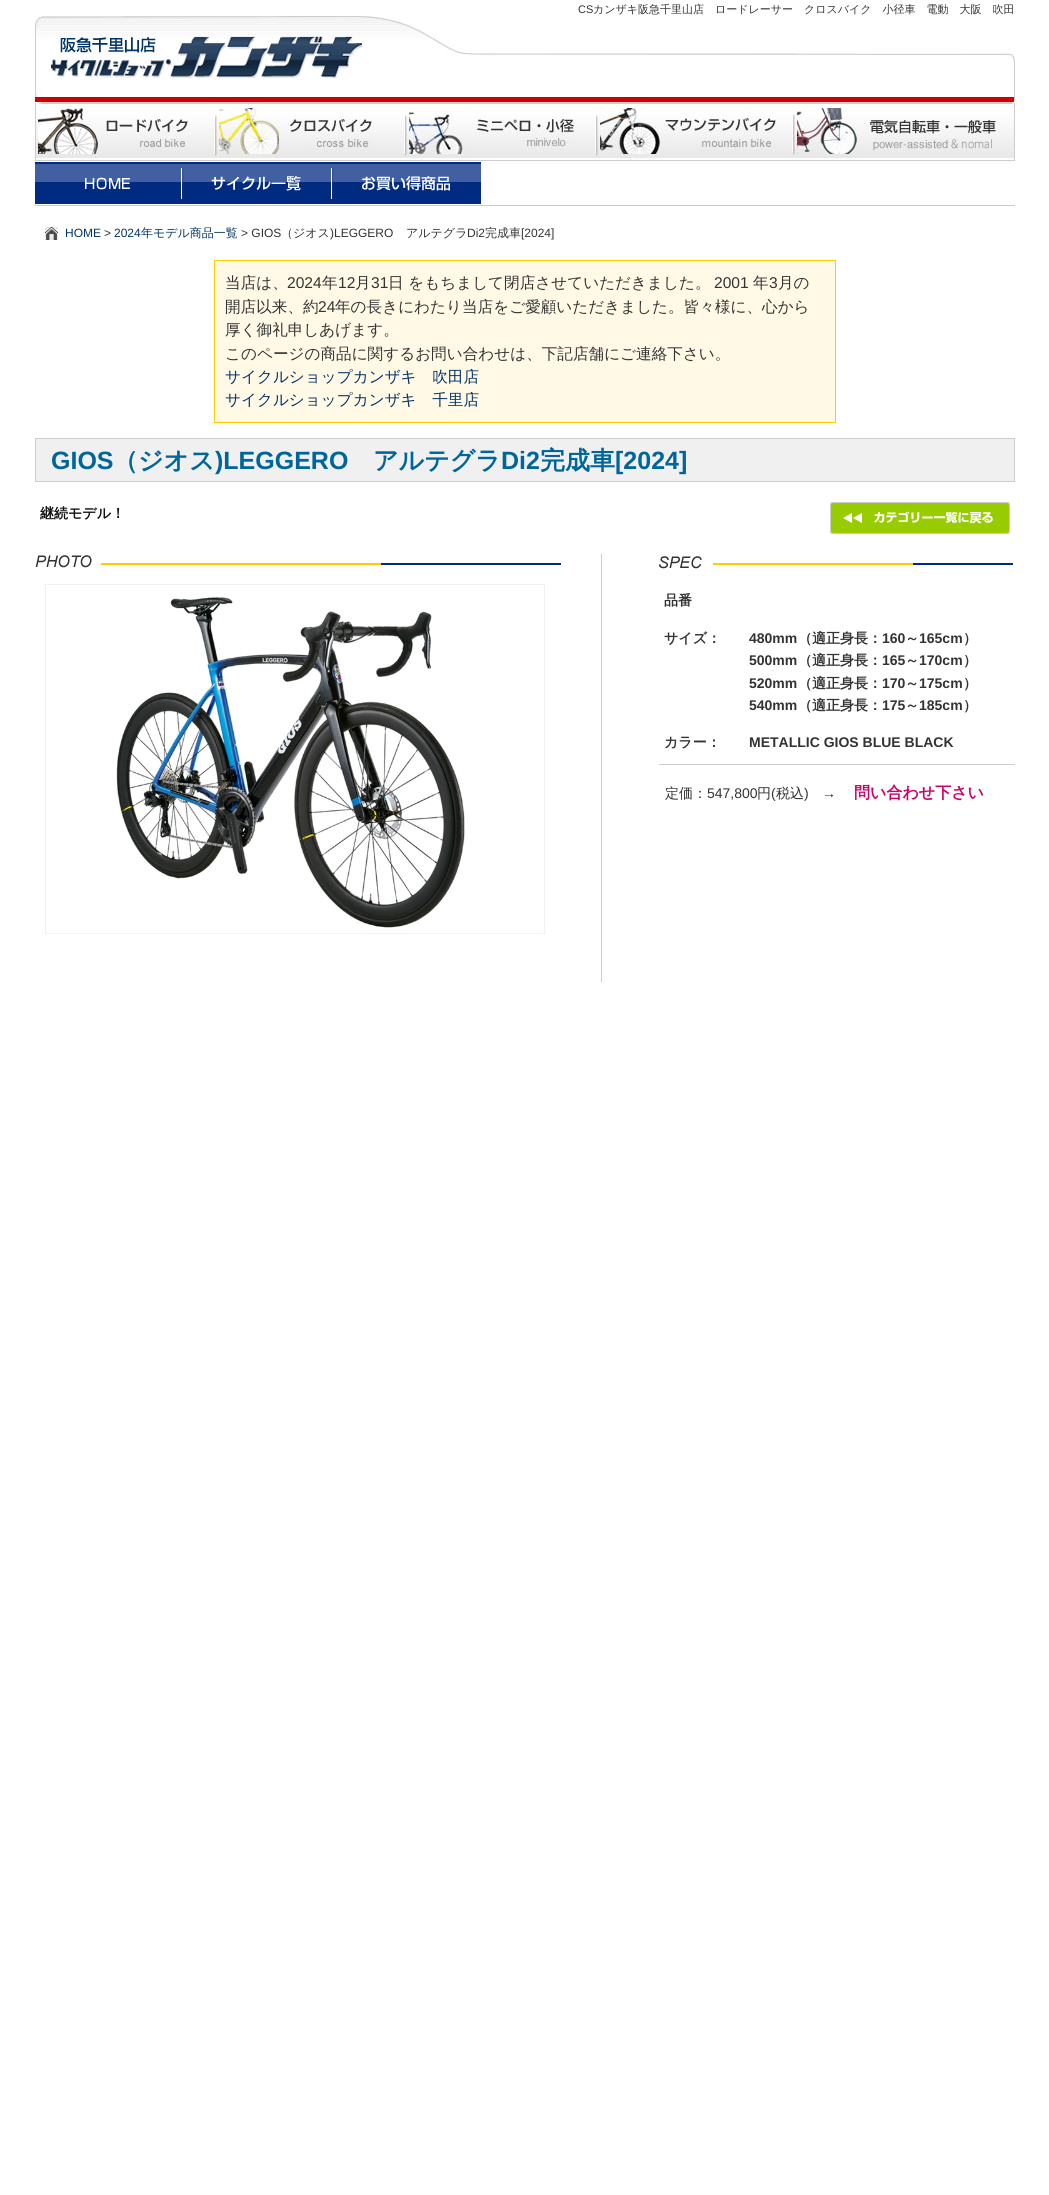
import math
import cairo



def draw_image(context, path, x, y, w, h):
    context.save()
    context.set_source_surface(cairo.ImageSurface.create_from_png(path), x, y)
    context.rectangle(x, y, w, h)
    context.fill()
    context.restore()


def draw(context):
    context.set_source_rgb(1, 1, 1)
    context.paint()
    draw_image(context, "images/1.png", 35, 16, 980, 87)
    draw_image(context, "images/2.png", 51, 36, 311, 42)
    draw_image(context, "images/3.png", 35, 103, 179, 58)
    draw_image(context, "images/4.png", 214, 103, 190, 58)
    draw_image(context, "images/5.png", 404, 103, 191, 58)
    draw_image(context, "images/6.png", 595, 103, 197, 58)
    draw_image(context, "images/7.png", 792, 103, 223, 58)
    context.set_source_rgb(204 / 255, 204 / 255, 204 / 255)
    context.rectangle(35, 205, 980, 1)
    context.fill()
    draw_image(context, "images/8.png", 35, 162, 146, 42)
    draw_image(context, "images/9.png", 181, 162, 150, 42)
    draw_image(context, "images/10.png", 331, 162, 150, 42)
    draw_image(context, "images/11.png", 45, 227, 13, 13)
    context.set_source_rgb(1, 249 / 255, 230 / 255)
    context.rectangle(214.5, 260.5, 621, 162)
    context.fill_preserve()
    context.set_source_rgb(1, 204 / 255, 0)
    context.set_line_width(1)
    context.stroke()
    context.set_source_rgb(240 / 255, 240 / 255, 240 / 255)
    context.rectangle(35.5, 438.5, 979, 43)
    context.fill_preserve()
    context.set_source_rgb(204 / 255, 204 / 255, 204 / 255)
    context.stroke()
    draw_image(context, "images/12.png", 830, 502, 180, 32)
    context.rectangle(601, 554, 1, 428)
    context.fill()
    draw_image(context, "images/13.png", 35, 555, 526, 13)
    draw_image(context, "images/14.png", 45, 584, 500, 350)
    draw_image(context, "images/15.png", 659, 556, 354, 13)
    context.rectangle(659, 764, 356, 1)
    context.fill()
    context.select_font_face("Liberation Sans")
    context.set_font_size(11)
    context.set_source_rgb(51 / 255, 51 / 255, 51 / 255)
    context.move_to(578, 13)
    context.show_text("CS")
    context.select_font_face("WenQuanYi Zen Hei Medium")
    context.move_to(593, 13)
    context.show_text("カンザキ阪急千里山店　ロードレーサー　クロスバイク　小径車　電動　大阪　吹田")
    context.select_font_face("Liberation Sans")
    context.set_font_size(12)
    context.set_source_rgb(0, 51 / 255, 102 / 255)
    context.move_to(65, 237)
    context.show_text("HOME")
    context.set_source_rgb(51 / 255, 51 / 255, 51 / 255)
    context.move_to(104, 237)
    context.show_text(">")
    context.set_source_rgb(0, 51 / 255, 102 / 255)
    context.move_to(114, 237)
    context.show_text("2024")
    context.select_font_face("WenQuanYi Zen Hei Medium")
    context.move_to(141, 237)
    context.show_text("年モデル商品一覧")
    context.select_font_face("Liberation Sans")
    context.set_source_rgb(51 / 255, 51 / 255, 51 / 255)
    context.move_to(241, 237)
    context.show_text("> GIOS")
    context.select_font_face("WenQuanYi Zen Hei Medium")
    context.move_to(281, 237)
    context.show_text("（ジオス")
    context.select_font_face("Liberation Sans")
    context.move_to(330, 237)
    context.show_text(")LEGGERO")
    context.select_font_face("WenQuanYi Zen Hei Medium")
    context.move_to(406, 237)
    context.show_text("アルテグラ")
    context.select_font_face("Liberation Sans")
    context.move_to(467, 237)
    context.show_text("Di2")
    context.select_font_face("WenQuanYi Zen Hei Medium")
    context.move_to(485, 237)
    context.show_text("完成車")
    context.select_font_face("Liberation Sans")
    context.move_to(521, 237)
    context.show_text("[2024]")
    context.select_font_face("WenQuanYi Zen Hei Medium")
    context.set_font_size(15.6)
    context.move_to(225, 288)
    context.show_text("当店は、")
    context.select_font_face("Liberation Sans")
    context.move_to(287, 288)
    context.show_text("2024")
    context.select_font_face("WenQuanYi Zen Hei Medium")
    context.move_to(322, 288)
    context.show_text("年")
    context.select_font_face("Liberation Sans")
    context.move_to(338, 288)
    context.show_text("12")
    context.select_font_face("WenQuanYi Zen Hei Medium")
    context.move_to(355, 288)
    context.show_text("月")
    context.select_font_face("Liberation Sans")
    context.move_to(371, 288)
    context.show_text("31")
    context.select_font_face("WenQuanYi Zen Hei Medium")
    context.move_to(388, 288)
    context.show_text("日 をもちまして閉店させていただきました。")
    context.select_font_face("Liberation Sans")
    context.move_to(714, 288)
    context.show_text("2001")
    context.select_font_face("WenQuanYi Zen Hei Medium")
    context.move_to(753, 288)
    context.show_text("年")
    context.select_font_face("Liberation Sans")
    context.move_to(769, 288)
    context.show_text("3")
    context.select_font_face("WenQuanYi Zen Hei Medium")
    context.move_to(778, 288)
    context.show_text("月の")
    context.move_to(225, 312)
    context.show_text("開店以来、約")
    context.select_font_face("Liberation Sans")
    context.move_to(318, 312)
    context.show_text("24")
    context.select_font_face("WenQuanYi Zen Hei Medium")
    context.move_to(335, 312)
    context.show_text("年の長きにわたり当店をご愛顧いただきました。皆々様に、心から")
    context.move_to(225, 335)
    context.show_text("厚く御礼申しあげます。")
    context.move_to(225, 359)
    context.show_text("このページの商品に関するお問い合わせは、下記店舗にご連絡下さい。")
    context.set_source_rgb(0, 51 / 255, 102 / 255)
    context.move_to(225, 382)
    context.show_text("サイクルショップカンザキ　吹田店")
    context.move_to(225, 405)
    context.show_text("サイクルショップカンザキ　千里店")
    context.select_font_face("Liberation Sans", cairo.FontSlant.NORMAL, cairo.FontWeight.BOLD)
    context.set_font_size(25)
    context.set_source_rgb(0, 102 / 255, 153 / 255)
    context.move_to(51, 469)
    context.show_text("GIOS")
    context.select_font_face("WenQuanYi Zen Hei", cairo.FontSlant.NORMAL, cairo.FontWeight.BOLD)
    context.move_to(113, 469)
    context.show_text("（ジオス")
    context.select_font_face("Liberation Sans", cairo.FontSlant.NORMAL, cairo.FontWeight.BOLD)
    context.move_to(215, 469)
    context.show_text(")LEGGERO")
    context.select_font_face("WenQuanYi Zen Hei", cairo.FontSlant.NORMAL, cairo.FontWeight.BOLD)
    context.move_to(373, 469)
    context.show_text("アルテグラ")
    context.select_font_face("Liberation Sans", cairo.FontSlant.NORMAL, cairo.FontWeight.BOLD)
    context.move_to(501, 469)
    context.show_text("Di2")
    context.select_font_face("WenQuanYi Zen Hei", cairo.FontSlant.NORMAL, cairo.FontWeight.BOLD)
    context.move_to(540, 469)
    context.show_text("完成車")
    context.select_font_face("Liberation Sans", cairo.FontSlant.NORMAL, cairo.FontWeight.BOLD)
    context.move_to(615, 469)
    context.show_text("[2024]")
    context.select_font_face("WenQuanYi Zen Hei", cairo.FontSlant.NORMAL, cairo.FontWeight.BOLD)
    context.set_font_size(14)
    context.set_source_rgb(17 / 255, 17 / 255, 17 / 255)
    context.move_to(40, 518)
    context.show_text("継続モデル！")
    context.set_source_rgb(51 / 255, 51 / 255, 51 / 255)
    context.move_to(664, 605)
    context.show_text("品番")
    context.move_to(664, 643)
    context.show_text("サイズ：")
    context.select_font_face("Liberation Sans", cairo.FontSlant.NORMAL, cairo.FontWeight.BOLD)
    context.move_to(749, 643)
    context.show_text("480mm")
    context.select_font_face("WenQuanYi Zen Hei", cairo.FontSlant.NORMAL, cairo.FontWeight.BOLD)
    context.move_to(798, 643)
    context.show_text("（適正身長：")
    context.select_font_face("Liberation Sans", cairo.FontSlant.NORMAL, cairo.FontWeight.BOLD)
    context.move_to(882, 643)
    context.show_text("160")
    context.select_font_face("WenQuanYi Zen Hei", cairo.FontSlant.NORMAL, cairo.FontWeight.BOLD)
    context.move_to(905, 643)
    context.show_text("～")
    context.select_font_face("Liberation Sans", cairo.FontSlant.NORMAL, cairo.FontWeight.BOLD)
    context.move_to(919, 643)
    context.show_text("165cm")
    context.select_font_face("WenQuanYi Zen Hei", cairo.FontSlant.NORMAL, cairo.FontWeight.BOLD)
    context.move_to(963, 643)
    context.show_text("）")
    context.select_font_face("Liberation Sans", cairo.FontSlant.NORMAL, cairo.FontWeight.BOLD)
    context.move_to(749, 665)
    context.show_text("500mm")
    context.select_font_face("WenQuanYi Zen Hei", cairo.FontSlant.NORMAL, cairo.FontWeight.BOLD)
    context.move_to(798, 665)
    context.show_text("（適正身長：")
    context.select_font_face("Liberation Sans", cairo.FontSlant.NORMAL, cairo.FontWeight.BOLD)
    context.move_to(882, 665)
    context.show_text("165")
    context.select_font_face("WenQuanYi Zen Hei", cairo.FontSlant.NORMAL, cairo.FontWeight.BOLD)
    context.move_to(905, 665)
    context.show_text("～")
    context.select_font_face("Liberation Sans", cairo.FontSlant.NORMAL, cairo.FontWeight.BOLD)
    context.move_to(919, 665)
    context.show_text("170cm")
    context.select_font_face("WenQuanYi Zen Hei", cairo.FontSlant.NORMAL, cairo.FontWeight.BOLD)
    context.move_to(963, 665)
    context.show_text("）")
    context.select_font_face("Liberation Sans", cairo.FontSlant.NORMAL, cairo.FontWeight.BOLD)
    context.move_to(749, 688)
    context.show_text("520mm")
    context.select_font_face("WenQuanYi Zen Hei", cairo.FontSlant.NORMAL, cairo.FontWeight.BOLD)
    context.move_to(798, 688)
    context.show_text("（適正身長：")
    context.select_font_face("Liberation Sans", cairo.FontSlant.NORMAL, cairo.FontWeight.BOLD)
    context.move_to(882, 688)
    context.show_text("170")
    context.select_font_face("WenQuanYi Zen Hei", cairo.FontSlant.NORMAL, cairo.FontWeight.BOLD)
    context.move_to(905, 688)
    context.show_text("～")
    context.select_font_face("Liberation Sans", cairo.FontSlant.NORMAL, cairo.FontWeight.BOLD)
    context.move_to(919, 688)
    context.show_text("175cm")
    context.select_font_face("WenQuanYi Zen Hei", cairo.FontSlant.NORMAL, cairo.FontWeight.BOLD)
    context.move_to(963, 688)
    context.show_text("）")
    context.select_font_face("Liberation Sans", cairo.FontSlant.NORMAL, cairo.FontWeight.BOLD)
    context.move_to(749, 710)
    context.show_text("540mm")
    context.select_font_face("WenQuanYi Zen Hei", cairo.FontSlant.NORMAL, cairo.FontWeight.BOLD)
    context.move_to(798, 710)
    context.show_text("（適正身長：")
    context.select_font_face("Liberation Sans", cairo.FontSlant.NORMAL, cairo.FontWeight.BOLD)
    context.move_to(882, 710)
    context.show_text("175")
    context.select_font_face("WenQuanYi Zen Hei", cairo.FontSlant.NORMAL, cairo.FontWeight.BOLD)
    context.move_to(905, 710)
    context.show_text("～")
    context.select_font_face("Liberation Sans", cairo.FontSlant.NORMAL, cairo.FontWeight.BOLD)
    context.move_to(919, 710)
    context.show_text("185cm")
    context.select_font_face("WenQuanYi Zen Hei", cairo.FontSlant.NORMAL, cairo.FontWeight.BOLD)
    context.move_to(963, 710)
    context.show_text("）")
    context.move_to(664, 747)
    context.show_text("カラー：")
    context.select_font_face("Liberation Sans", cairo.FontSlant.NORMAL, cairo.FontWeight.BOLD)
    context.move_to(749, 747)
    context.show_text("METALLIC GIOS BLUE BLACK")
    context.select_font_face("WenQuanYi Zen Hei Medium")
    context.move_to(665, 798)
    context.show_text("定価：")
    context.select_font_face("Liberation Sans")
    context.move_to(707, 798)
    context.show_text("547,800")
    context.select_font_face("WenQuanYi Zen Hei Medium")
    context.move_to(757, 798)
    context.show_text("円")
    context.select_font_face("Liberation Sans")
    context.move_to(771, 798)
    context.show_text("(")
    context.select_font_face("WenQuanYi Zen Hei Medium")
    context.move_to(776, 798)
    context.show_text("税込")
    context.select_font_face("Liberation Sans")
    context.move_to(804, 798)
    context.show_text(")")
    context.move_to(822, 798)
    context.show_text("→")
    context.select_font_face("WenQuanYi Zen Hei", cairo.FontSlant.NORMAL, cairo.FontWeight.BOLD)
    context.set_font_size(16)
    context.set_source_rgb(204 / 255, 0, 102 / 255)
    context.move_to(854, 798)
    context.show_text("問い合わせ下さい")


surface = cairo.ImageSurface(cairo.Format.RGB24, 1049, 2195)
context = cairo.Context(surface)
options = cairo.FontOptions()
options.set_hint_metrics(cairo.HintMetrics.OFF)
options.set_hint_style(cairo.HintStyle.NONE)
context.set_font_options(options)
context.set_miter_limit(4)
draw(context)
surface.write_to_png("out.png")
